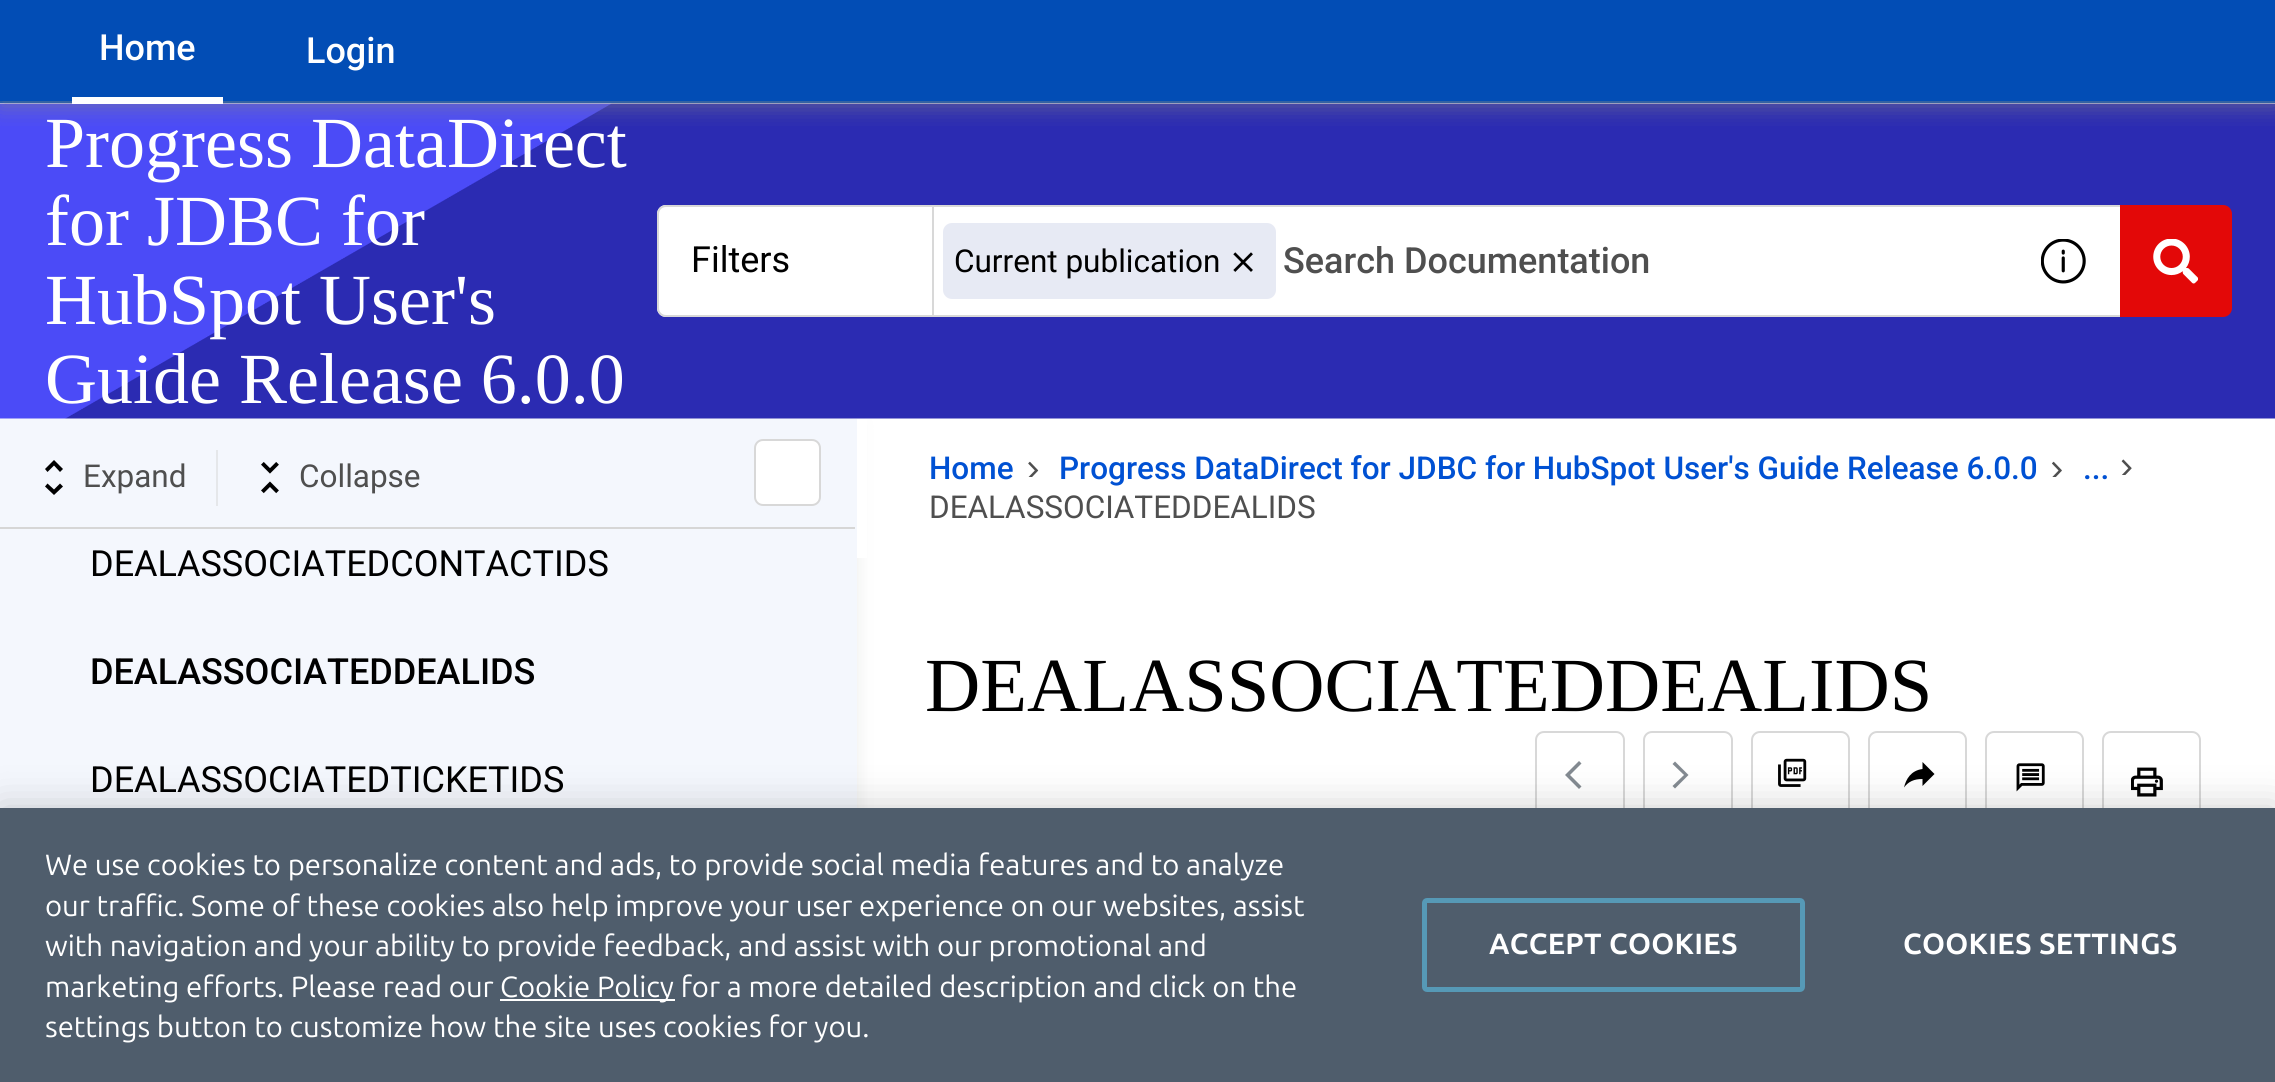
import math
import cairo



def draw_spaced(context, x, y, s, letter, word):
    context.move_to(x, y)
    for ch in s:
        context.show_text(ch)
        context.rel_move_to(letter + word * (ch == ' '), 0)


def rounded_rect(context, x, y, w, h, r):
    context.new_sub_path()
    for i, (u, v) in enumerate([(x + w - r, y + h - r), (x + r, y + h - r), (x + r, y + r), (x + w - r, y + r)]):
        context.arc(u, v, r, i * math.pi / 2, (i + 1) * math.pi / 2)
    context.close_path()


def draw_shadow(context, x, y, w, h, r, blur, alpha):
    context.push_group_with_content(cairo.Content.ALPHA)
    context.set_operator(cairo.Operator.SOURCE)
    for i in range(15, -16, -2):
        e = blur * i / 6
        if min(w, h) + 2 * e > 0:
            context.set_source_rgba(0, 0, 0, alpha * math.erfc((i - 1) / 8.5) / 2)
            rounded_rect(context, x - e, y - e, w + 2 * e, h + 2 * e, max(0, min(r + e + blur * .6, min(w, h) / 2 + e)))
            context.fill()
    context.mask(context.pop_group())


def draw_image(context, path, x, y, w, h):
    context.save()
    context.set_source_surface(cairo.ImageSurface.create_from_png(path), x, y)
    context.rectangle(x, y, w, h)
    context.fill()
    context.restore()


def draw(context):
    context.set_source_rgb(1, 1, 1)
    context.paint()
    context.set_source_rgb(2 / 255, 77 / 255, 181 / 255)
    context.rectangle(0, 0, 2275, 103)
    context.fill()
    context.set_source_rgb(181 / 255, 183 / 255, 179 / 255)
    draw_shadow(context, 0, 423, 857, 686, 0, 9, 0.25)
    draw_image(context, "images/1.png", 0, 103, 2275, 316)
    context.save()
    context.rectangle(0, 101, 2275, 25)
    context.clip()
    context.set_source_rgb(131 / 255, 132 / 255, 134 / 255)
    draw_shadow(context, 0, 5, 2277, 101, 0, 11, 0.62)
    context.restore()
    context.set_source_rgb(1, 1, 1)
    context.rectangle(72, 97, 151, 7)
    context.fill()
    context.new_path()
    context.move_to(666, 205)
    context.line_to(932, 205)
    context.line_to(932, 317)
    context.line_to(666, 317)
    context.curve_to(661, 317, 657, 313, 657, 308)
    context.line_to(657, 214)
    context.curve_to(657, 209, 661, 205, 666, 205)
    context.close_path()
    context.fill()
    context.set_source_rgb(216 / 255, 216 / 255, 216 / 255)
    context.set_fill_rule(cairo.FillRule.EVEN_ODD)
    context.new_path()
    context.move_to(666, 205)
    context.line_to(932, 205)
    context.line_to(932, 317)
    context.line_to(666, 317)
    context.curve_to(661, 317, 657, 313, 657, 308)
    context.line_to(657, 214)
    context.curve_to(657, 209, 661, 205, 666, 205)
    context.close_path()
    context.move_to(666, 207)
    context.line_to(932, 207)
    context.line_to(932, 315)
    context.line_to(666, 315)
    context.curve_to(662, 315, 659, 312, 659, 308)
    context.line_to(659, 214)
    context.curve_to(659, 210, 662, 207, 666, 207)
    context.close_path()
    context.fill()
    context.set_source_rgb(1, 1, 1)
    context.rectangle(934, 207, 1186, 108)
    context.fill()
    context.set_source_rgb(216 / 255, 216 / 255, 216 / 255)
    context.rectangle(932, 205, 1188, 2)
    context.fill()
    context.rectangle(932, 315, 1188, 2)
    context.fill()
    draw_image(context, "images/2.png", 2041, 239, 45, 45)
    context.set_source_rgb(227 / 255, 8 / 255, 8 / 255)
    context.new_path()
    context.move_to(2120, 205)
    context.line_to(2223, 205)
    context.curve_to(2228, 205, 2232, 209, 2232, 214)
    context.line_to(2232, 308)
    context.curve_to(2232, 313, 2228, 317, 2223, 317)
    context.line_to(2120, 317)
    context.close_path()
    context.fill()
    draw_image(context, "images/3.png", 2153, 239, 45, 45)
    context.set_source_rgb(231 / 255, 234 / 255, 244 / 255)
    rounded_rect(context, 943, 223, 333, 76, 9)
    context.fill()
    draw_image(context, "images/4.png", 1233, 252, 20, 20)
    context.set_source_rgb(216 / 255, 216 / 255, 216 / 255)
    context.rectangle(932, 205, 2, 112)
    context.fill()
    context.set_source_rgb(244 / 255, 247 / 255, 253 / 255)
    context.rectangle(0, 419, 857, 389)
    context.fill()
    context.set_source_rgb(214 / 255, 214 / 255, 214 / 255)
    context.rectangle(0, 527, 855, 2)
    context.fill()
    context.set_source_rgb(0, 0, 0)
    context.set_fill_rule(cairo.FillRule.WINDING)
    context.new_path()
    context.move_to(60, 472)
    context.line_to(63, 469)
    context.line_to(54, 460)
    context.line_to(45, 469)
    context.line_to(47.5, 472)
    context.line_to(54, 465.5)
    context.close_path()
    context.move_to(54, 495)
    context.line_to(63, 486.5)
    context.line_to(60, 483.5)
    context.line_to(54, 489.5)
    context.line_to(47.5, 483.5)
    context.line_to(45, 486.5)
    context.close_path()
    context.fill()
    context.set_source_rgb(229 / 255, 231 / 255, 234 / 255)
    context.rectangle(216, 450, 2, 56)
    context.fill()
    draw_image(context, "images/5.png", 261, 462, 18, 32)
    context.set_source_rgb(1, 1, 1)
    rounded_rect(context, 755, 440, 65, 65, 8)
    context.fill_preserve()
    context.set_source_rgb(216 / 255, 216 / 255, 216 / 255)
    context.stroke()
    context.set_source_rgb(1, 1, 1)
    context.rectangle(857, 419, 10, 139)
    context.fill()
    draw_image(context, "images/6.png", 1028, 461, 11, 16)
    draw_image(context, "images/7.png", 2052, 461, 10, 16)
    draw_image(context, "images/8.png", 2121, 459, 11, 16)
    rounded_rect(context, 1536, 732, 88, 97, 8)
    context.set_source_rgb(216 / 255, 216 / 255, 216 / 255)
    context.stroke()
    context.set_source_rgb(131 / 255, 138 / 255, 145 / 255)
    context.new_path()
    context.move_to(1581.5, 763.5)
    context.line_to(1579, 761)
    context.line_to(1565, 775)
    context.line_to(1579, 789)
    context.line_to(1581.5, 786.5)
    context.line_to(1570, 775)
    context.close_path()
    context.fill()
    rounded_rect(context, 1644, 732, 88, 97, 8)
    context.set_source_rgb(216 / 255, 216 / 255, 216 / 255)
    context.stroke()
    context.set_source_rgb(131 / 255, 138 / 255, 145 / 255)
    context.new_path()
    context.move_to(1672.5, 786)
    context.line_to(1675, 788.5)
    context.line_to(1688.5, 775)
    context.line_to(1675, 761.5)
    context.line_to(1672.5, 764)
    context.line_to(1684, 775)
    context.close_path()
    context.fill()
    rounded_rect(context, 1752, 732, 97, 97, 8)
    context.set_source_rgb(216 / 255, 216 / 255, 216 / 255)
    context.stroke()
    draw_image(context, "images/9.png", 1778, 758, 29, 29)
    rounded_rect(context, 1869, 732, 97, 97, 8)
    context.stroke()
    context.set_source_rgb(0, 0, 0)
    context.new_path()
    context.move_to(1922.5, 769)
    context.line_to(1922.5, 762)
    context.line_to(1934.5, 774)
    context.line_to(1922.5, 786)
    context.line_to(1922.5, 779)
    context.curve_to(1914, 779, 1908.5, 781.5, 1904, 787.5)
    context.curve_to(1906, 779, 1911, 770.5, 1922.5, 769)
    context.close_path()
    context.fill()
    rounded_rect(context, 1986, 732, 97, 97, 8)
    context.set_source_rgb(216 / 255, 216 / 255, 216 / 255)
    context.stroke()
    draw_image(context, "images/10.png", 2016, 763, 29, 29)
    rounded_rect(context, 2103, 732, 97, 97, 8)
    context.stroke()
    draw_image(context, "images/11.png", 2131, 767, 32, 30)
    context.set_source_rgb(0, 0, 0)
    draw_shadow(context, 0, 808, 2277, 274, 0, 20, 0.2)
    context.set_source_rgb(79 / 255, 93 / 255, 108 / 255)
    context.rectangle(0, 808, 2275, 274)
    context.fill()
    context.set_source_rgb(1, 1, 1)
    context.rectangle(500, 999, 175, 2)
    context.fill()
    rounded_rect(context, 1424.5, 900.5, 378, 89, 2.5)
    context.set_source_rgb(86 / 255, 153 / 255, 182 / 255)
    context.set_line_width(5)
    context.stroke()
    context.select_font_face("Roboto Medium")
    context.set_font_size(36)
    context.set_source_rgb(1, 1, 1)
    context.move_to(99, 60)
    context.show_text("Home")
    context.move_to(306, 63)
    context.show_text("Login")
    context.select_font_face("Liberation Serif")
    context.set_font_size(72)
    context.move_to(45, 167)
    context.show_text("Progress DataDirect")
    context.move_to(45, 245)
    context.show_text("for JDBC for")
    context.move_to(45, 324)
    context.show_text("HubSpot User's")
    context.move_to(45, 403)
    context.show_text("Guide Release 6.0.0")
    context.select_font_face("Roboto")
    context.set_font_size(36)
    context.set_source_rgb(0, 0, 0)
    context.move_to(691, 272)
    context.show_text("Filters")
    context.set_font_size(31.5)
    context.move_to(954, 272)
    context.show_text("Current publication")
    context.select_font_face("Roboto Medium")
    context.set_font_size(36)
    context.set_source_rgb(79 / 255, 79 / 255, 79 / 255)
    context.move_to(1283, 273)
    context.show_text("Search Documentation")
    context.select_font_face("Roboto")
    context.set_font_size(31.5)
    context.move_to(83, 487)
    context.show_text("Expand")
    context.move_to(299, 487)
    context.show_text("Collapse")
    context.set_font_size(36)
    context.set_source_rgb(0, 0, 0)
    context.move_to(90, 576)
    context.show_text("DEALASSOCIATEDCONTACTIDS")
    context.select_font_face("Roboto Medium")
    context.move_to(90, 684)
    context.show_text("DEALASSOCIATEDDEALIDS")
    context.select_font_face("Roboto")
    context.move_to(90, 792)
    context.show_text("DEALASSOCIATEDTICKETIDS")
    context.select_font_face("Roboto Medium")
    context.set_font_size(31.5)
    context.set_source_rgb(0, 81 / 255, 211 / 255)
    context.move_to(929, 479)
    context.show_text("Home")
    context.move_to(1059, 479)
    context.show_text("Progress DataDirect for JDBC for HubSpot User's Guide Release 6.0.0")
    context.move_to(2083, 479)
    context.show_text("...")
    context.select_font_face("Roboto")
    context.set_source_rgb(79 / 255, 79 / 255, 79 / 255)
    context.move_to(929, 518)
    context.show_text("DEALASSOCIATEDDEALIDS")
    context.select_font_face("Liberation Serif")
    context.set_font_size(76.5)
    context.set_source_rgb(0, 0, 0)
    context.move_to(925, 711)
    context.show_text("DEALASSOCIATEDDEALIDS")
    context.select_font_face("Ubuntu")
    context.set_font_size(29.25)
    context.set_source_rgb(1, 1, 1)
    context.move_to(45, 875)
    context.show_text("We use cookies to personalize content and ads, to provide social media features and to analyze")
    context.move_to(45, 916)
    context.show_text("our traffic. Some of these cookies also help improve your user experience on our websites, assist")
    context.move_to(45, 956)
    context.show_text("with navigation and your ability to provide feedback, and assist with our promotional and")
    context.move_to(45, 997)
    context.show_text("marketing efforts. Please read our")
    context.move_to(500, 997)
    context.show_text("Cookie Policy for a more detailed description and click on the")
    context.move_to(45, 1037)
    context.show_text("settings button to customize how the site uses cookies for you.")
    context.select_font_face("Ubuntu", cairo.FontSlant.NORMAL, cairo.FontWeight.BOLD)
    draw_spaced(context, 1489, 954, "ACCEPT COOKIES", 0.25, 0)
    draw_spaced(context, 1903, 954, "COOKIES SETTINGS", 0.25, 0)


surface = cairo.ImageSurface(cairo.Format.RGB24, 2275, 1082)
context = cairo.Context(surface)
options = cairo.FontOptions()
options.set_hint_metrics(cairo.HintMetrics.OFF)
options.set_hint_style(cairo.HintStyle.NONE)
context.set_font_options(options)
context.set_miter_limit(4)
draw(context)
surface.write_to_png("out.png")
